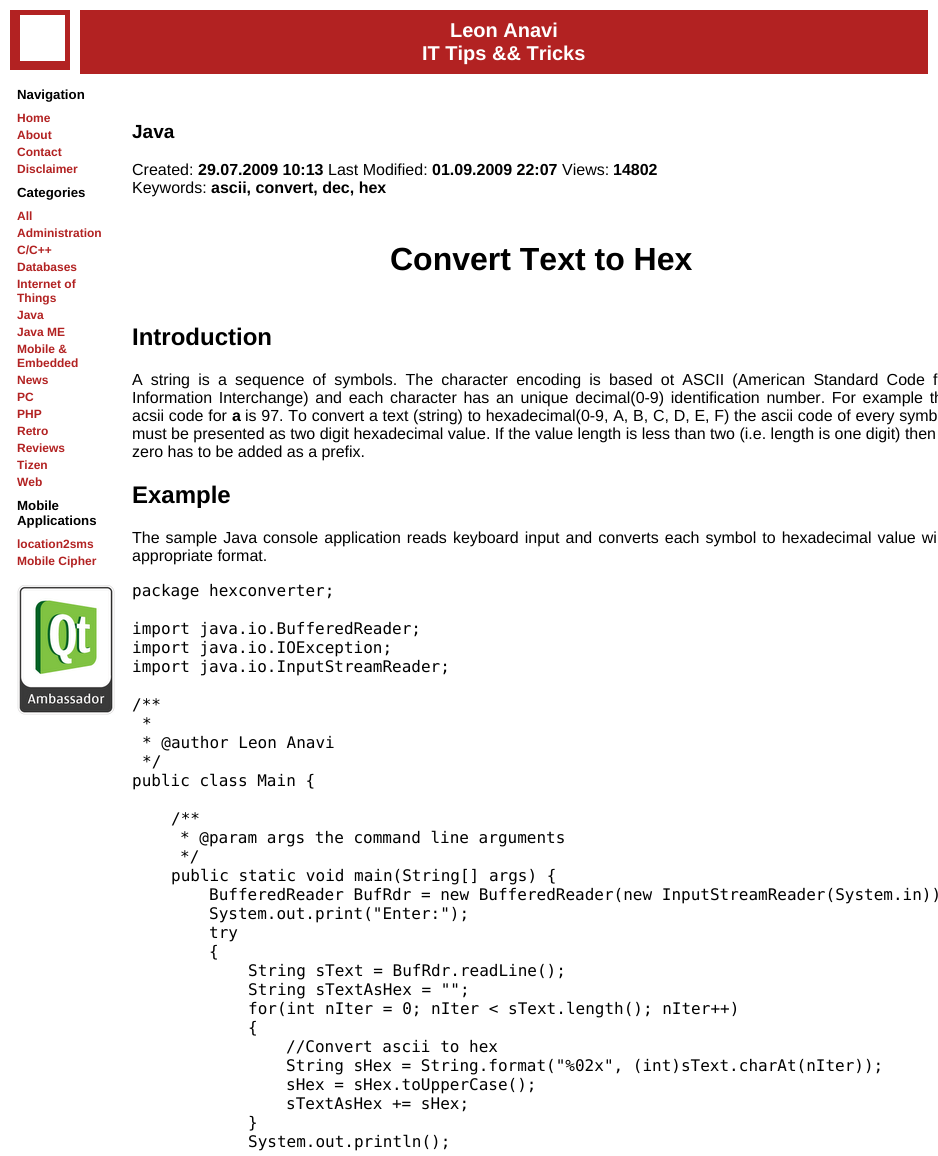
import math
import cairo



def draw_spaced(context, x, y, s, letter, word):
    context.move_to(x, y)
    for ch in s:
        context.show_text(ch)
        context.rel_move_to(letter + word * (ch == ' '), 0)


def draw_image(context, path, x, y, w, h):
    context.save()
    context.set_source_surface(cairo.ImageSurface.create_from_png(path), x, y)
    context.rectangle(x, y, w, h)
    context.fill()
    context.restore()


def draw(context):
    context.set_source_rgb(1, 1, 1)
    context.paint()
    draw_image(context, "images/1.png", 10, 10, 60, 60)
    context.set_source_rgb(178 / 255, 34 / 255, 34 / 255)
    context.rectangle(80, 10, 848, 64)
    context.fill()
    draw_image(context, "images/2.png", 17, 585, 98, 130)
    context.select_font_face("Liberation Sans", cairo.FontSlant.NORMAL, cairo.FontWeight.BOLD)
    context.set_font_size(20)
    context.set_source_rgb(1, 1, 1)
    context.move_to(450, 37)
    context.show_text("Leon Anavi")
    context.move_to(422, 60)
    context.show_text("IT Tips && Tricks")
    context.set_font_size(13.25)
    context.set_source_rgb(0, 0, 0)
    context.move_to(17, 99)
    context.show_text("Navigation")
    context.set_font_size(12)
    context.set_source_rgb(178 / 255, 34 / 255, 34 / 255)
    context.move_to(17, 122)
    context.show_text("Home")
    context.move_to(17, 139)
    context.show_text("About")
    context.move_to(17, 156)
    context.show_text("Contact")
    context.move_to(17, 173)
    context.show_text("Disclaimer")
    context.set_font_size(13.25)
    context.set_source_rgb(0, 0, 0)
    context.move_to(17, 197)
    context.show_text("Categories")
    context.set_font_size(12)
    context.set_source_rgb(178 / 255, 34 / 255, 34 / 255)
    context.move_to(17, 220)
    context.show_text("All")
    context.move_to(17, 237)
    context.show_text("Administration")
    context.move_to(17, 254)
    context.show_text("C/C++")
    context.move_to(17, 271)
    context.show_text("Databases")
    context.move_to(17, 288)
    context.show_text("Internet of")
    context.move_to(17, 302)
    context.show_text("Things")
    context.move_to(17, 319)
    context.show_text("Java")
    context.move_to(17, 336)
    context.show_text("Java ME")
    context.move_to(17, 353)
    context.show_text("Mobile &")
    context.move_to(17, 367)
    context.show_text("Embedded")
    context.move_to(17, 384)
    context.show_text("News")
    context.move_to(17, 401)
    context.show_text("PC")
    context.move_to(17, 418)
    context.show_text("PHP")
    context.move_to(17, 435)
    context.show_text("Retro")
    context.move_to(17, 452)
    context.show_text("Reviews")
    context.move_to(17, 469)
    context.show_text("Tizen")
    context.move_to(17, 486)
    context.show_text("Web")
    context.set_font_size(13.25)
    context.set_source_rgb(0, 0, 0)
    context.move_to(17, 510)
    context.show_text("Mobile")
    context.move_to(17, 525)
    context.show_text("Applications")
    context.set_font_size(12)
    context.set_source_rgb(178 / 255, 34 / 255, 34 / 255)
    context.move_to(17, 548)
    context.show_text("location2sms")
    context.move_to(17, 565)
    context.show_text("Mobile Cipher")
    context.set_font_size(19)
    context.set_source_rgb(0, 0, 0)
    context.move_to(132, 138)
    context.show_text("Java")
    context.select_font_face("Liberation Sans")
    context.set_font_size(16)
    context.move_to(132, 175)
    context.show_text("Created:")
    context.select_font_face("Liberation Sans", cairo.FontSlant.NORMAL, cairo.FontWeight.BOLD)
    context.move_to(198, 175)
    context.show_text("29.07.2009 10:13")
    context.select_font_face("Liberation Sans")
    context.move_to(328, 175)
    context.show_text("Last Modified:")
    context.select_font_face("Liberation Sans", cairo.FontSlant.NORMAL, cairo.FontWeight.BOLD)
    context.move_to(432, 175)
    context.show_text("01.09.2009 22:07")
    context.select_font_face("Liberation Sans")
    context.move_to(562, 175)
    context.show_text("Views:")
    context.select_font_face("Liberation Sans", cairo.FontSlant.NORMAL, cairo.FontWeight.BOLD)
    context.move_to(613, 175)
    context.show_text("14802")
    context.select_font_face("Liberation Sans")
    context.move_to(132, 193)
    context.show_text("Keywords:")
    context.select_font_face("Liberation Sans", cairo.FontSlant.NORMAL, cairo.FontWeight.BOLD)
    context.move_to(211, 193)
    context.show_text("ascii, convert, dec, hex")
    context.set_font_size(32)
    context.move_to(390, 270)
    context.show_text("Convert Text to Hex")
    context.set_font_size(24)
    context.move_to(132, 345)
    context.show_text("Introduction")
    context.select_font_face("Liberation Sans")
    context.set_font_size(16)
    draw_spaced(context, 132, 385, "A string is a sequence of symbols. The character encoding is based ot ASCII (American Standard Code f", 0, 3.75)
    draw_spaced(context, 132, 403, "Information Interchange) and each character has an unique decimal(0-9) identification number. For example th", 0, 2.25)
    draw_spaced(context, 132, 421, "acsii code for", 0, 0.3)
    context.select_font_face("Liberation Sans", cairo.FontSlant.NORMAL, cairo.FontWeight.BOLD)
    context.move_to(232, 421)
    context.show_text("a")
    context.select_font_face("Liberation Sans")
    draw_spaced(context, 245, 421, "is 97. To convert a text (string) to hexadecimal(0-9, A, B, C, D, E, F) the ascii code of every symb", 0, 0.3)
    context.move_to(132, 439)
    context.show_text("must be presented as two digit hexadecimal value. If the value length is less than two (i.e. length is one digit) then")
    context.move_to(132, 457)
    context.show_text("zero has to be added as a prefix.")
    context.select_font_face("Liberation Sans", cairo.FontSlant.NORMAL, cairo.FontWeight.BOLD)
    context.set_font_size(24)
    context.move_to(132, 503)
    context.show_text("Example")
    context.select_font_face("Liberation Sans")
    context.set_font_size(16)
    draw_spaced(context, 132, 543, "The sample Java console application reads keyboard input and converts each symbol to hexadecimal value wi", 0, 1.6)
    context.move_to(132, 561)
    context.show_text("appropriate format.")
    context.select_font_face("DejaVu Sans Mono")
    context.move_to(132, 596)
    context.show_text("package hexconverter;")
    context.move_to(132, 634)
    context.show_text("import java.io.BufferedReader;")
    context.move_to(132, 653)
    context.show_text("import java.io.IOException;")
    context.move_to(132, 672)
    context.show_text("import java.io.InputStreamReader;")
    context.move_to(132, 710)
    context.show_text("/**")
    context.move_to(142, 729)
    context.show_text("*")
    context.move_to(142, 748)
    context.show_text("* @author Leon Anavi")
    context.move_to(142, 767)
    context.show_text("*/")
    context.move_to(132, 786)
    context.show_text("public class Main {")
    context.move_to(171, 824)
    context.show_text("/**")
    context.move_to(180, 843)
    context.show_text("* @param args the command line arguments")
    context.move_to(180, 862)
    context.show_text("*/")
    context.move_to(171, 881)
    context.show_text("public static void main(String[] args) {")
    context.move_to(209, 900)
    context.show_text("BufferedReader BufRdr = new BufferedReader(new InputStreamReader(System.in))")
    context.move_to(209, 919)
    context.show_text("System.out.print(\"Enter:\");")
    context.move_to(209, 938)
    context.show_text("try")
    context.move_to(209, 957)
    context.show_text("{")
    context.move_to(248, 976)
    context.show_text("String sText = BufRdr.readLine();")
    context.move_to(248, 995)
    context.show_text("String sTextAsHex = \"\";")
    context.move_to(248, 1014)
    context.show_text("for(int nIter = 0; nIter < sText.length(); nIter++)")
    context.move_to(248, 1033)
    context.show_text("{")
    context.move_to(286, 1052)
    context.show_text("//Convert ascii to hex")
    context.move_to(286, 1071)
    context.show_text("String sHex = String.format(\"%02x\", (int)sText.charAt(nIter));")
    context.move_to(286, 1090)
    context.show_text("sHex = sHex.toUpperCase();")
    context.move_to(286, 1109)
    context.show_text("sTextAsHex += sHex;")
    context.move_to(248, 1128)
    context.show_text("}")
    context.move_to(248, 1147)
    context.show_text("System.out.println();")


surface = cairo.ImageSurface(cairo.Format.RGB24, 938, 1156)
context = cairo.Context(surface)
options = cairo.FontOptions()
options.set_hint_metrics(cairo.HintMetrics.OFF)
options.set_hint_style(cairo.HintStyle.NONE)
context.set_font_options(options)
context.set_miter_limit(4)
draw(context)
surface.write_to_png("out.png")
